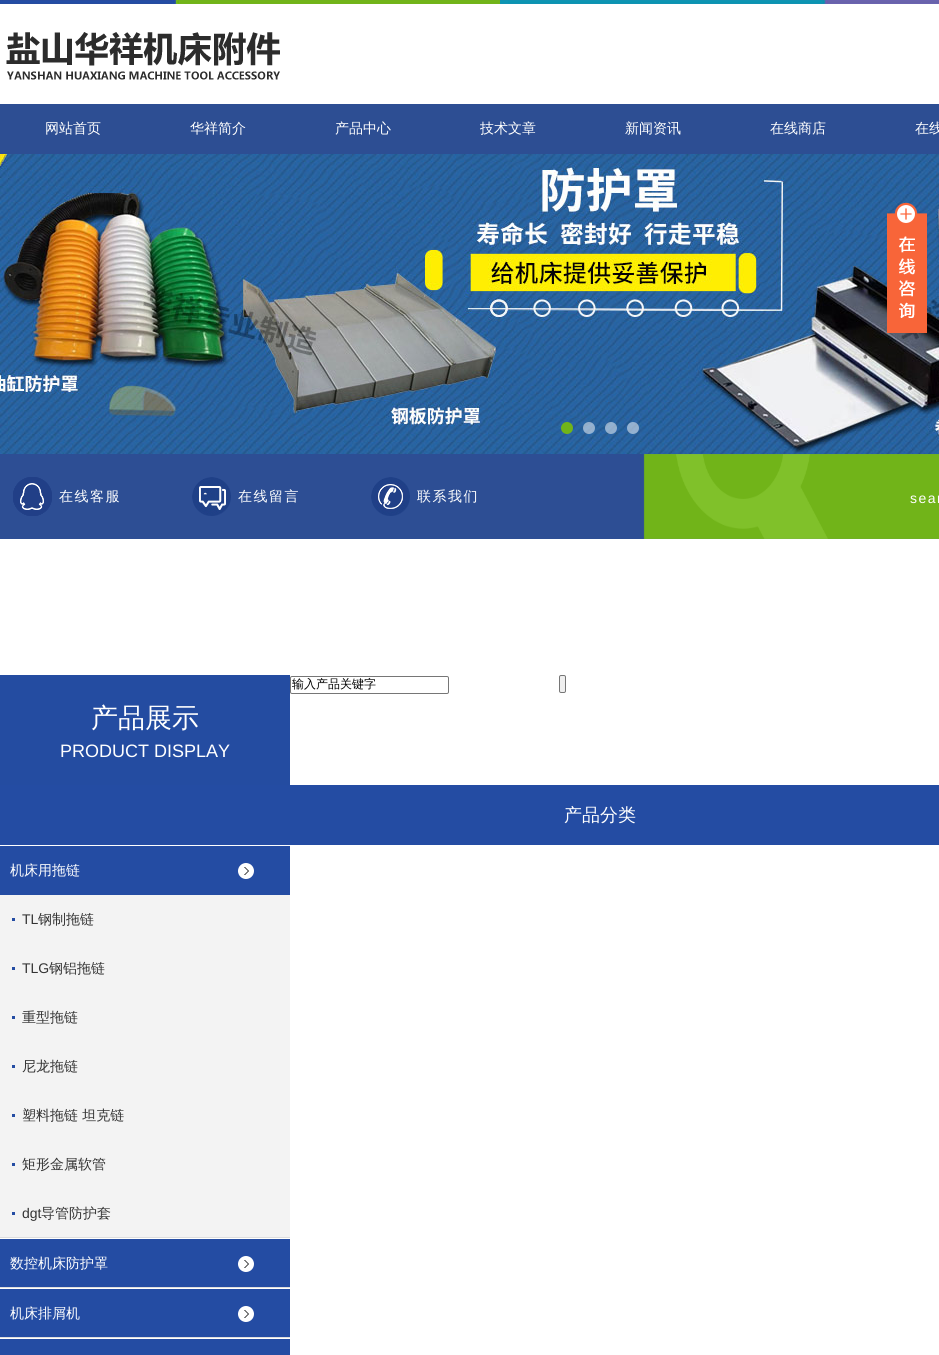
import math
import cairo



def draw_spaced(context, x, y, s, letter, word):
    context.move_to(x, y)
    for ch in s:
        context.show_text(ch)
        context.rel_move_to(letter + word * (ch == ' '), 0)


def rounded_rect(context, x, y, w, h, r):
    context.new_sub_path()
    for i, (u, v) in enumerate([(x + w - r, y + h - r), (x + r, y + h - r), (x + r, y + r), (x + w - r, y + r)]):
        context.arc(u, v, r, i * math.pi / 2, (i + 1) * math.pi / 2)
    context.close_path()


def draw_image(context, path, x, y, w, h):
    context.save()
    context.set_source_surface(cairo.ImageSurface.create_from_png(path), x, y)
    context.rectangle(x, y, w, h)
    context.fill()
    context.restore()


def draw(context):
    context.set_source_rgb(1, 1, 1)
    context.paint()
    draw_image(context, "images/1.png", 0, 0, 939, 4)
    draw_image(context, "images/2.png", 6, 32, 274, 48)
    context.set_source_rgb(45 / 255, 78 / 255, 147 / 255)
    context.rectangle(0, 104, 939, 50)
    context.fill()
    draw_image(context, "images/3.png", 0, 154, 939, 300)
    context.set_source_rgb(113 / 255, 180 / 255, 25 / 255)
    context.arc(567, 428, 6, 0, 2 * math.pi)
    context.fill()
    context.set_source_rgba(1, 1, 1, 0.5)
    context.arc(589, 428, 6, 0, 2 * math.pi)
    context.fill()
    context.arc(611, 428, 6, 0, 2 * math.pi)
    context.fill()
    context.arc(633, 428, 6, 0, 2 * math.pi)
    context.fill()
    draw_image(context, "images/4.png", 887, 202, 40, 131)
    draw_image(context, "images/5.png", 643, 454, 296, 85)
    draw_image(context, "images/6.png", 0, 454, 645, 85)
    draw_image(context, "images/7.png", 13, 477, 39, 39)
    draw_image(context, "images/8.png", 192, 477, 39, 39)
    draw_image(context, "images/9.png", 371, 477, 39, 39)
    rounded_rect(context, 290.5, 676.5, 158, 17, 1.5)
    context.set_source_rgb(118 / 255, 118 / 255, 118 / 255)
    context.set_line_width(1)
    context.stroke()
    context.set_source_rgb(239 / 255, 239 / 255, 239 / 255)
    rounded_rect(context, 559.5, 675.5, 6, 17, 1.5)
    context.fill_preserve()
    context.set_source_rgb(118 / 255, 118 / 255, 118 / 255)
    context.stroke()
    context.set_source_rgb(36 / 255, 76 / 255, 161 / 255)
    context.rectangle(0, 675, 290, 110)
    context.fill()
    context.set_source_rgb(36 / 255, 76 / 255, 163 / 255)
    context.rectangle(0, 785, 939, 60)
    context.fill()
    context.rectangle(0, 846, 290, 49)
    context.fill()
    draw_image(context, "images/10.png", 238, 863, 16, 16)
    context.set_source_rgb(221 / 255, 221 / 255, 221 / 255)
    context.rectangle(0, 1237, 290, 1)
    context.fill()
    context.set_source_rgb(243 / 255, 243 / 255, 243 / 255)
    context.rectangle(0, 895, 290, 342)
    context.fill()
    context.set_source_rgb(36 / 255, 76 / 255, 163 / 255)
    context.rectangle(12, 918, 3, 3)
    context.fill()
    context.rectangle(12, 967, 3, 3)
    context.fill()
    context.rectangle(12, 1016, 3, 3)
    context.fill()
    context.rectangle(12, 1065, 3, 3)
    context.fill()
    context.rectangle(12, 1114, 3, 3)
    context.fill()
    context.rectangle(12, 1163, 3, 3)
    context.fill()
    context.rectangle(12, 1212, 3, 3)
    context.fill()
    context.rectangle(0, 1239, 290, 48)
    context.fill()
    draw_image(context, "images/10.png", 238, 1256, 16, 16)
    context.set_source_rgb(221 / 255, 221 / 255, 221 / 255)
    context.rectangle(0, 1287, 290, 1)
    context.fill()
    context.set_source_rgb(36 / 255, 76 / 255, 163 / 255)
    context.rectangle(0, 1289, 290, 48)
    context.fill()
    draw_image(context, "images/10.png", 238, 1306, 16, 16)
    context.set_source_rgb(221 / 255, 221 / 255, 221 / 255)
    context.rectangle(0, 1337, 290, 1)
    context.fill()
    context.set_source_rgb(36 / 255, 76 / 255, 163 / 255)
    context.rectangle(0, 1339, 290, 16)
    context.fill()
    context.select_font_face("WenQuanYi Zen Hei Medium")
    context.set_font_size(14)
    context.set_source_rgb(1, 1, 1)
    context.move_to(45, 133)
    context.show_text("网站首页")
    context.move_to(190, 133)
    context.show_text("华祥简介")
    context.move_to(335, 133)
    context.show_text("产品中心")
    context.move_to(480, 133)
    context.show_text("技术文章")
    context.move_to(625, 133)
    context.show_text("新闻资讯")
    context.move_to(770, 133)
    context.show_text("在线商店")
    context.move_to(915, 133)
    context.show_text("在线")
    draw_spaced(context, 59, 501, "在线客服", 1.5, 0)
    draw_spaced(context, 238, 501, "在线留言", 1.5, 0)
    draw_spaced(context, 417, 501, "联系我们", 1.5, 0)
    context.select_font_face("Liberation Sans")
    draw_spaced(context, 910, 503, "sear", 1.5, 0)
    context.select_font_face("WenQuanYi Zen Hei Medium")
    context.set_font_size(12)
    context.set_source_rgb(0, 0, 0)
    context.move_to(292, 688)
    context.show_text("输入产品关键字")
    context.set_font_size(27)
    context.set_source_rgb(1, 1, 1)
    context.move_to(91, 727)
    context.show_text("产品展示")
    context.select_font_face("Liberation Sans")
    context.set_font_size(18)
    context.move_to(60, 757)
    context.show_text("PRODUCT DISPLAY")
    context.select_font_face("WenQuanYi Zen Hei Medium")
    context.move_to(564, 821)
    context.show_text("产品分类")
    context.set_font_size(14)
    context.move_to(10, 875)
    context.show_text("机床用拖链")
    context.select_font_face("Liberation Sans")
    context.set_source_rgb(51 / 255, 51 / 255, 51 / 255)
    context.move_to(22, 924)
    context.show_text("TL")
    context.select_font_face("WenQuanYi Zen Hei Medium")
    context.move_to(38, 924)
    context.show_text("钢制拖链")
    context.select_font_face("Liberation Sans")
    context.move_to(22, 973)
    context.show_text("TLG")
    context.select_font_face("WenQuanYi Zen Hei Medium")
    context.move_to(49, 973)
    context.show_text("钢铝拖链")
    context.move_to(22, 1022)
    context.show_text("重型拖链")
    context.move_to(22, 1071)
    context.show_text("尼龙拖链")
    context.move_to(22, 1120)
    context.show_text("塑料拖链 坦克链")
    context.move_to(22, 1169)
    context.show_text("矩形金属软管")
    context.select_font_face("Liberation Sans")
    context.move_to(22, 1218)
    context.show_text("dgt")
    context.select_font_face("WenQuanYi Zen Hei Medium")
    context.move_to(41, 1218)
    context.show_text("导管防护套")
    context.set_source_rgb(1, 1, 1)
    context.move_to(10, 1268)
    context.show_text("数控机床防护罩")
    context.move_to(10, 1318)
    context.show_text("机床排屑机")


surface = cairo.ImageSurface(cairo.Format.RGB24, 939, 1355)
context = cairo.Context(surface)
options = cairo.FontOptions()
options.set_hint_metrics(cairo.HintMetrics.OFF)
options.set_hint_style(cairo.HintStyle.NONE)
context.set_font_options(options)
context.set_miter_limit(4)
draw(context)
surface.write_to_png("out.png")
